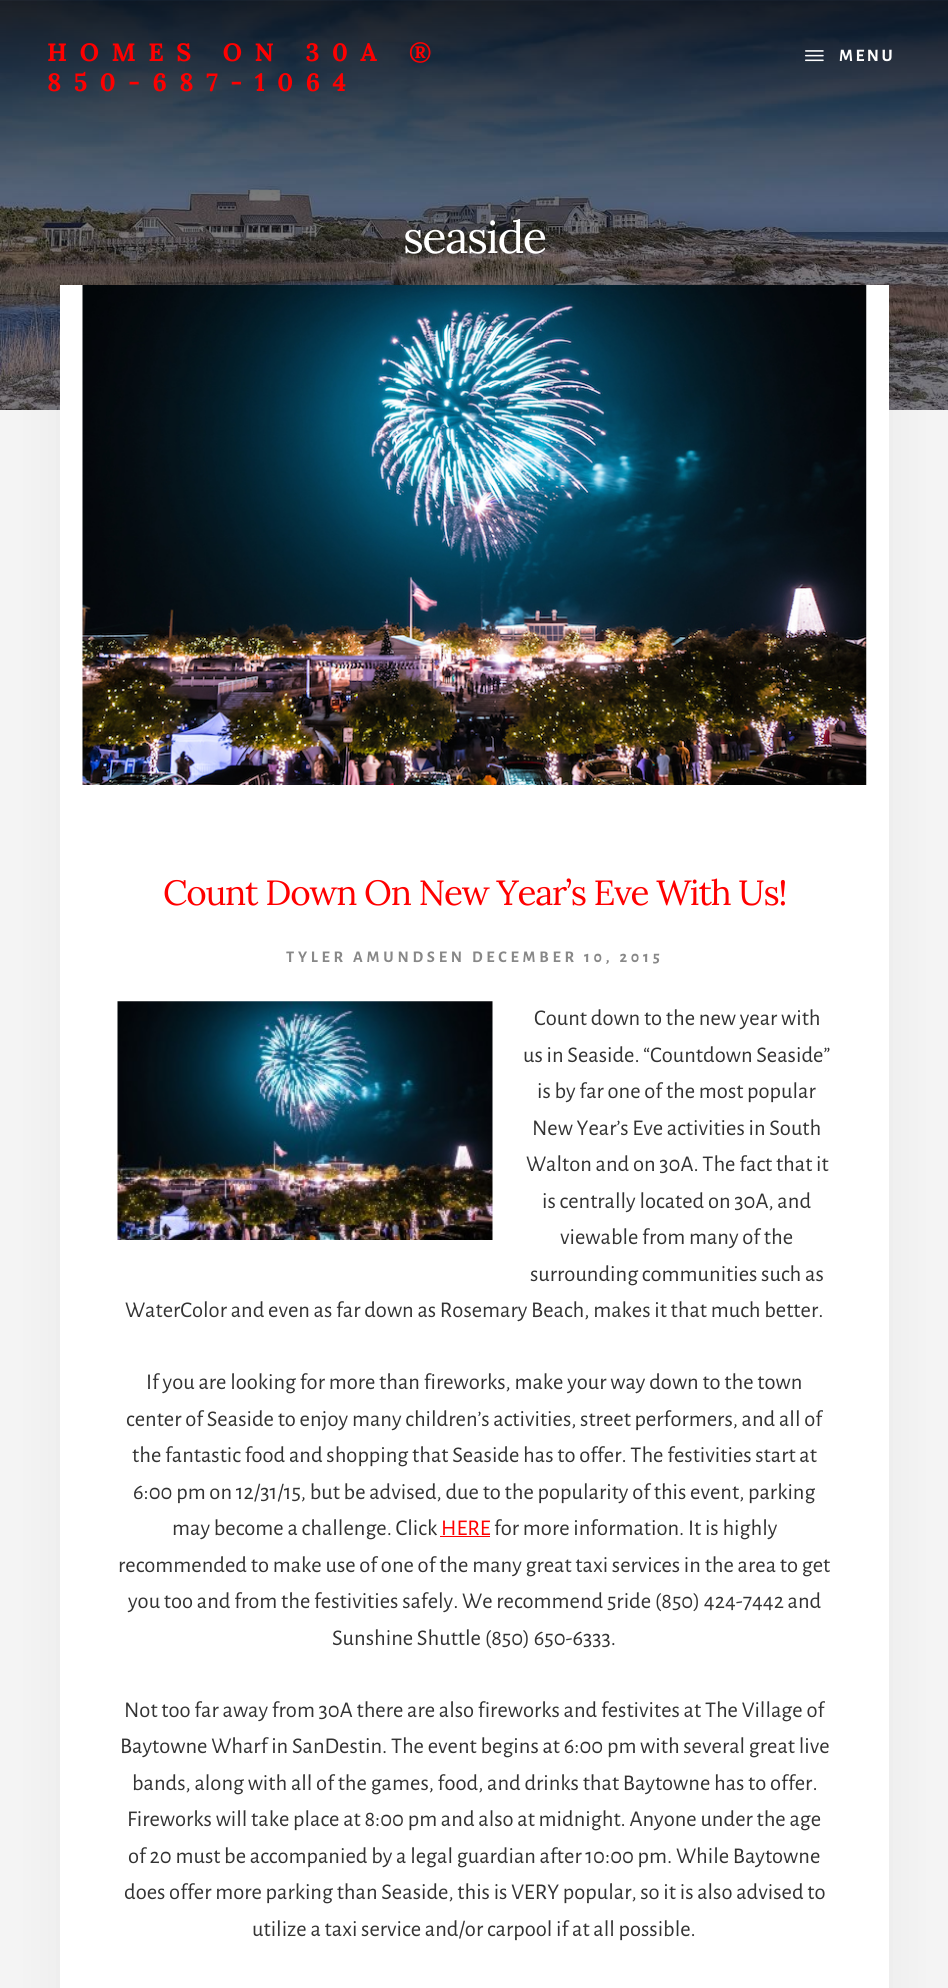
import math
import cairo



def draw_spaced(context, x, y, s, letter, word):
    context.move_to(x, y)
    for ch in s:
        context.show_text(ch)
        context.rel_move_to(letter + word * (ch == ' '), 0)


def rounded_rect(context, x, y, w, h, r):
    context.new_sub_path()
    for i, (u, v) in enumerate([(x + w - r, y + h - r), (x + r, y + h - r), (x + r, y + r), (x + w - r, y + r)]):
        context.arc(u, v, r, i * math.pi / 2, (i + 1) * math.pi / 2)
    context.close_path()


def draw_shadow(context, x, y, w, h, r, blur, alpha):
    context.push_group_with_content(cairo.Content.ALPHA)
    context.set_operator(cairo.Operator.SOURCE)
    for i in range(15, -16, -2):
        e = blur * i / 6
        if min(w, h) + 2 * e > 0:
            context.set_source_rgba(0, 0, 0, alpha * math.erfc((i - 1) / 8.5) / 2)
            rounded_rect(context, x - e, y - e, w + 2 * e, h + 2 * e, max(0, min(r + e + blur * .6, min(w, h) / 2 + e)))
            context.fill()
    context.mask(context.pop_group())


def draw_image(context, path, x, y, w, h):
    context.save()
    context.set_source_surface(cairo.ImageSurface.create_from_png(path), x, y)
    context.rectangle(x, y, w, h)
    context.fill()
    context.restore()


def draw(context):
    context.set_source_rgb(244 / 255, 244 / 255, 244 / 255)
    context.paint()
    draw_image(context, "images/1.png", 0, 0, 948, 410)
    draw_image(context, "images/2.png", 805, 50, 19, 12)
    context.set_source_rgb(0, 0, 0)
    draw_shadow(context, 60, 316, 829, 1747, 0, 25, 0.05)
    context.set_source_rgb(1, 1, 1)
    context.rectangle(60, 285, 829, 1703)
    context.fill()
    draw_image(context, "images/3.png", 82, 285, 785, 500)
    draw_image(context, "images/4.png", 117, 1001, 376, 239)
    context.set_source_rgb(1, 0, 0)
    context.rectangle(440, 1536, 50, 1)
    context.fill()
    context.select_font_face("Lora", cairo.FontSlant.NORMAL, cairo.FontWeight.BOLD)
    context.set_font_size(25)
    draw_spaced(context, 47, 61, "HOMES ON 30A ®", 12.5, 0)
    draw_spaced(context, 47, 91, "850-687-1064", 12.5, 0)
    context.select_font_face("Alegreya Sans", cairo.FontSlant.NORMAL, cairo.FontWeight.BOLD)
    context.set_font_size(17.5)
    context.set_source_rgb(1, 1, 1)
    draw_spaced(context, 839, 61, "MENU", 2.5, 0)
    context.select_font_face("Lora")
    context.set_font_size(45)
    draw_spaced(context, 403, 253, "seaside", -1.5, 0)
    context.set_font_size(35)
    context.set_source_rgb(1, 0, 0)
    draw_spaced(context, 163, 905, "Count Down On New Year’s Eve With Us!", -1.25, 0)
    context.select_font_face("Alegreya Sans", cairo.FontSlant.NORMAL, cairo.FontWeight.BOLD)
    context.set_font_size(16.25)
    context.set_source_rgb(136 / 255, 136 / 255, 136 / 255)
    draw_spaced(context, 286, 962, "TYLER AMUNDSEN DECEMBER 10, 2015", 3.75, 0)
    context.select_font_face("Alegreya Sans")
    context.set_font_size(22.5)
    context.set_source_rgb(51 / 255, 51 / 255, 51 / 255)
    context.move_to(534, 1025)
    context.show_text("Count down to the new year with")
    context.move_to(523, 1062)
    context.show_text("us in Seaside. “Countdown Seaside”")
    context.move_to(537, 1098)
    context.show_text("is by far one of the most popular")
    context.move_to(532, 1135)
    context.show_text("New Year’s Eve activities in South")
    context.move_to(526, 1171)
    context.show_text("Walton and on 30A. The fact that it")
    context.move_to(542, 1208)
    context.show_text("is centrally located on 30A, and")
    context.move_to(560, 1244)
    context.show_text("viewable from many of the")
    context.move_to(530, 1281)
    context.show_text("surrounding communities such as")
    context.move_to(125, 1317)
    context.show_text("WaterColor and even as far down as Rosemary Beach, makes it that much better.")
    context.move_to(146, 1389)
    context.show_text("If you are looking for more than fireworks, make your way down to the town")
    context.move_to(126, 1426)
    context.show_text("center of Seaside to enjoy many children’s activities, street performers, and all of")
    context.move_to(132, 1462)
    context.show_text("the fantastic food and shopping that Seaside has to offer. The festivities start at")
    context.move_to(133, 1499)
    context.show_text("6:00 pm on 12/31/15, but be advised, due to the popularity of this event, parking")
    context.move_to(172, 1535)
    context.show_text("may become a challenge. Click")
    context.set_source_rgb(1, 0, 0)
    context.move_to(441, 1535)
    context.show_text("HERE")
    context.set_source_rgb(51 / 255, 51 / 255, 51 / 255)
    context.move_to(494, 1535)
    context.show_text("for more information. It is highly")
    context.move_to(118, 1572)
    context.show_text("recommended to make use of one of the many great taxi services in the area to get")
    context.move_to(128, 1608)
    context.show_text("you too and from the festivities safely. We recommend 5ride (850) 424-7442 and")
    context.move_to(332, 1645)
    context.show_text("Sunshine Shuttle (850) 650-6333.")
    context.move_to(124, 1717)
    context.show_text("Not too far away from 30A there are also fireworks and festivites at The Village of")
    context.move_to(120, 1753)
    context.show_text("Baytowne Wharf in SanDestin. The event begins at 6:00 pm with several great live")
    context.move_to(132, 1790)
    context.show_text("bands, along with all of the games, food, and drinks that Baytowne has to offer.")
    context.move_to(127, 1826)
    context.show_text("Fireworks will take place at 8:00 pm and also at midnight. Anyone under the age")
    context.move_to(128, 1863)
    context.show_text("of 20 must be accompanied by a legal guardian after 10:00 pm. While Baytowne")
    context.move_to(124, 1899)
    context.show_text("does offer more parking than Seaside, this is VERY popular, so it is also advised to")
    context.move_to(252, 1936)
    context.show_text("utilize a taxi service and/or carpool if at all possible.")


surface = cairo.ImageSurface(cairo.Format.RGB24, 948, 1988)
context = cairo.Context(surface)
options = cairo.FontOptions()
options.set_hint_metrics(cairo.HintMetrics.OFF)
options.set_hint_style(cairo.HintStyle.NONE)
context.set_font_options(options)
context.set_miter_limit(4)
draw(context)
surface.write_to_png("out.png")
